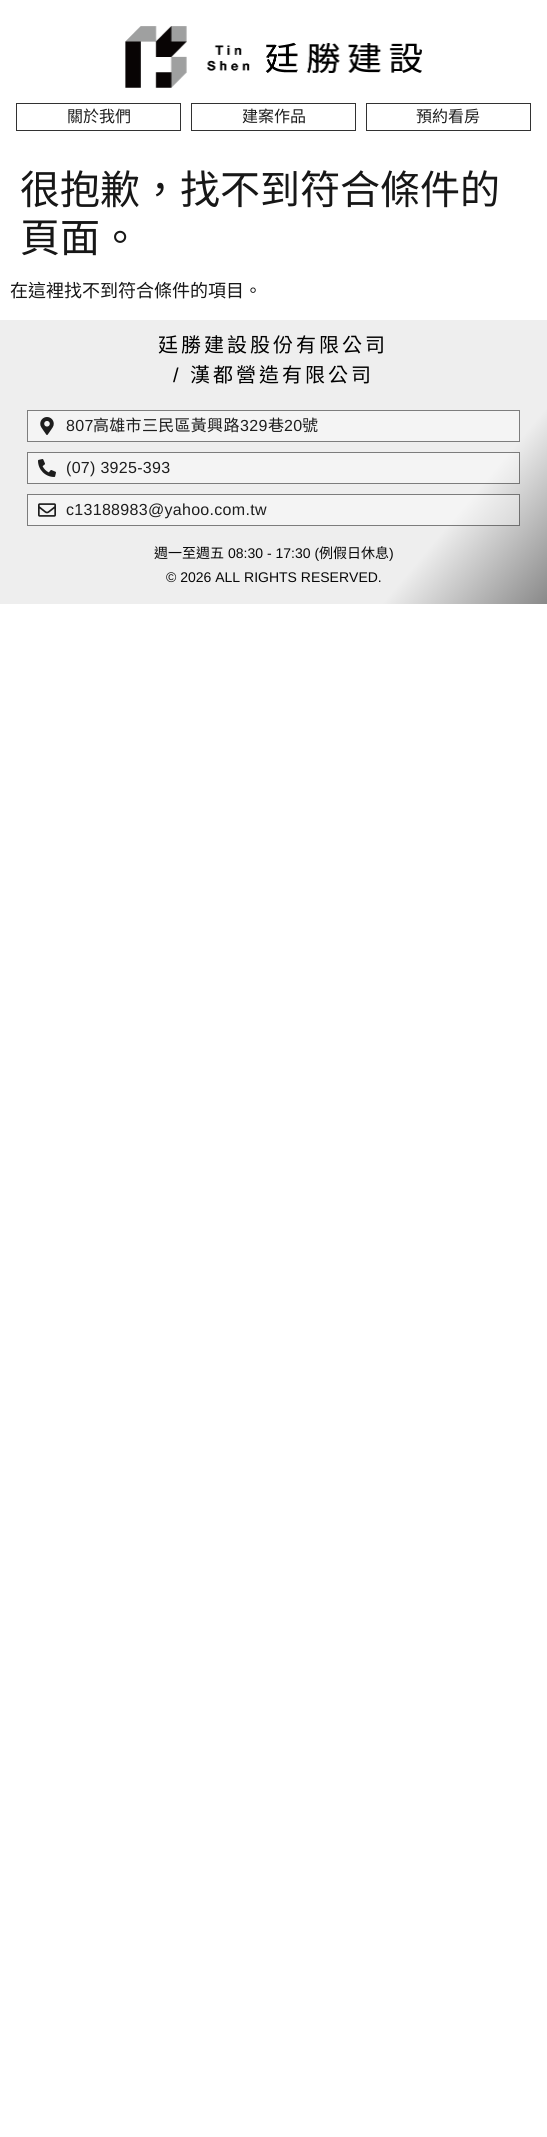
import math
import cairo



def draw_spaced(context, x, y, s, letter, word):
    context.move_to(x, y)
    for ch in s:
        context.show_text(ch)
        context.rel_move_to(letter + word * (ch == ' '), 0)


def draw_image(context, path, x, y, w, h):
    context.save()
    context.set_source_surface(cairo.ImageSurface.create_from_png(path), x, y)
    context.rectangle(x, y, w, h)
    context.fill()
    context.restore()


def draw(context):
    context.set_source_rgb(1, 1, 1)
    context.paint()
    draw_image(context, "images/1.png", 125, 26, 297, 62)
    context.rectangle(16.5, 103.5, 164, 27)
    context.set_source_rgb(50 / 255, 50 / 255, 50 / 255)
    context.set_line_width(1)
    context.stroke()
    context.rectangle(191.5, 103.5, 164, 27)
    context.stroke()
    context.rectangle(366.5, 103.5, 164, 27)
    context.stroke()
    gradient = cairo.LinearGradient(43, 269, 504, 655)
    gradient.add_color_stop_rgba(0.79, 238 / 255, 238 / 255, 238 / 255, 1)
    gradient.add_color_stop_rgba(1, 137 / 255, 137 / 255, 137 / 255, 1)
    context.set_source(gradient)
    context.rectangle(0, 320, 547, 284)
    context.fill()
    gradient = cairo.LinearGradient(43, 269, 504, 655)
    gradient.add_color_stop_rgba(0.79, 244 / 255, 244 / 255, 244 / 255, 1)
    gradient.add_color_stop_rgba(1, 179 / 255, 179 / 255, 179 / 255, 1)
    context.set_source(gradient)
    context.rectangle(27, 494, 493, 32)
    context.fill()
    context.rectangle(27, 452, 493, 32)
    context.fill()
    context.set_source_rgb(244 / 255, 244 / 255, 244 / 255)
    context.rectangle(27.5, 410.5, 492, 31)
    context.fill_preserve()
    context.set_source_rgb(125 / 255, 125 / 255, 125 / 255)
    context.stroke()
    draw_image(context, "images/2.png", 40, 417, 14, 18)
    context.rectangle(27.5, 452.5, 492, 31)
    context.set_source_rgba(2 / 255, 1 / 255, 1 / 255, 0.49)
    context.stroke()
    draw_image(context, "images/3.png", 38, 459, 18, 18)
    context.rectangle(27.5, 494.5, 492, 31)
    context.stroke()
    draw_image(context, "images/4.png", 38, 503, 18, 14)
    context.select_font_face("Noto Sans CJK TC")
    context.set_font_size(16)
    context.set_source_rgb(29 / 255, 29 / 255, 29 / 255)
    context.move_to(67, 122)
    context.show_text("關於我們")
    context.move_to(242, 122)
    context.show_text("建案作品")
    context.move_to(416, 122)
    context.show_text("預約看房")
    context.set_font_size(40)
    context.set_source_rgb(23 / 255, 23 / 255, 23 / 255)
    context.move_to(20, 204)
    context.show_text("很抱歉，找不到符合條件的")
    context.move_to(20, 252)
    context.show_text("頁面。")
    context.set_font_size(18)
    context.move_to(10, 297)
    context.show_text("在這裡找不到符合條件的項目。")
    context.set_font_size(20)
    context.set_source_rgb(0, 0, 0)
    draw_spaced(context, 158, 352, "廷勝建設股份有限公司", 3, 0)
    context.select_font_face("Liberation Sans")
    draw_spaced(context, 173, 382, "/", 3, 0)
    context.select_font_face("Noto Sans CJK TC")
    draw_spaced(context, 190, 382, "漢都營造有限公司", 3, 0)
    context.select_font_face("Liberation Sans")
    context.set_font_size(16)
    context.set_source_rgb(29 / 255, 29 / 255, 29 / 255)
    draw_spaced(context, 66, 431, "807", 0.3, 0)
    context.select_font_face("Noto Sans CJK TC")
    draw_spaced(context, 93, 431, "高雄市三民區黃興路", 0.3, 0)
    context.select_font_face("Liberation Sans")
    draw_spaced(context, 240, 431, "329", 0.3, 0)
    context.select_font_face("Noto Sans CJK TC")
    draw_spaced(context, 268, 431, "巷", 0.3, 0)
    context.select_font_face("Liberation Sans")
    draw_spaced(context, 284, 431, "20", 0.3, 0)
    context.select_font_face("Noto Sans CJK TC")
    draw_spaced(context, 302, 431, "號", 0.3, 0)
    context.select_font_face("Liberation Sans")
    draw_spaced(context, 66, 473, "(07) 3925-393", 0.3, 0)
    draw_spaced(context, 66, 515, "c13188983@yahoo.com.tw", 0.3, 0)
    context.select_font_face("Noto Sans CJK TC")
    context.set_font_size(14)
    context.set_source_rgb(8 / 255, 8 / 255, 8 / 255)
    context.move_to(154, 558)
    context.show_text("週一至週五")
    context.select_font_face("Liberation Sans")
    context.move_to(228, 558)
    context.show_text("08:30 - 17:30 (")
    context.select_font_face("Noto Sans CJK TC")
    context.move_to(319, 558)
    context.show_text("例假日休息")
    context.select_font_face("Liberation Sans")
    context.move_to(389, 558)
    context.show_text(")")
    context.move_to(166, 582)
    context.show_text("© 2026 ALL RIGHTS RESERVED.")


surface = cairo.ImageSurface(cairo.Format.RGB24, 547, 2137)
context = cairo.Context(surface)
options = cairo.FontOptions()
options.set_hint_metrics(cairo.HintMetrics.OFF)
options.set_hint_style(cairo.HintStyle.NONE)
context.set_font_options(options)
context.set_miter_limit(4)
draw(context)
surface.write_to_png("out.png")
